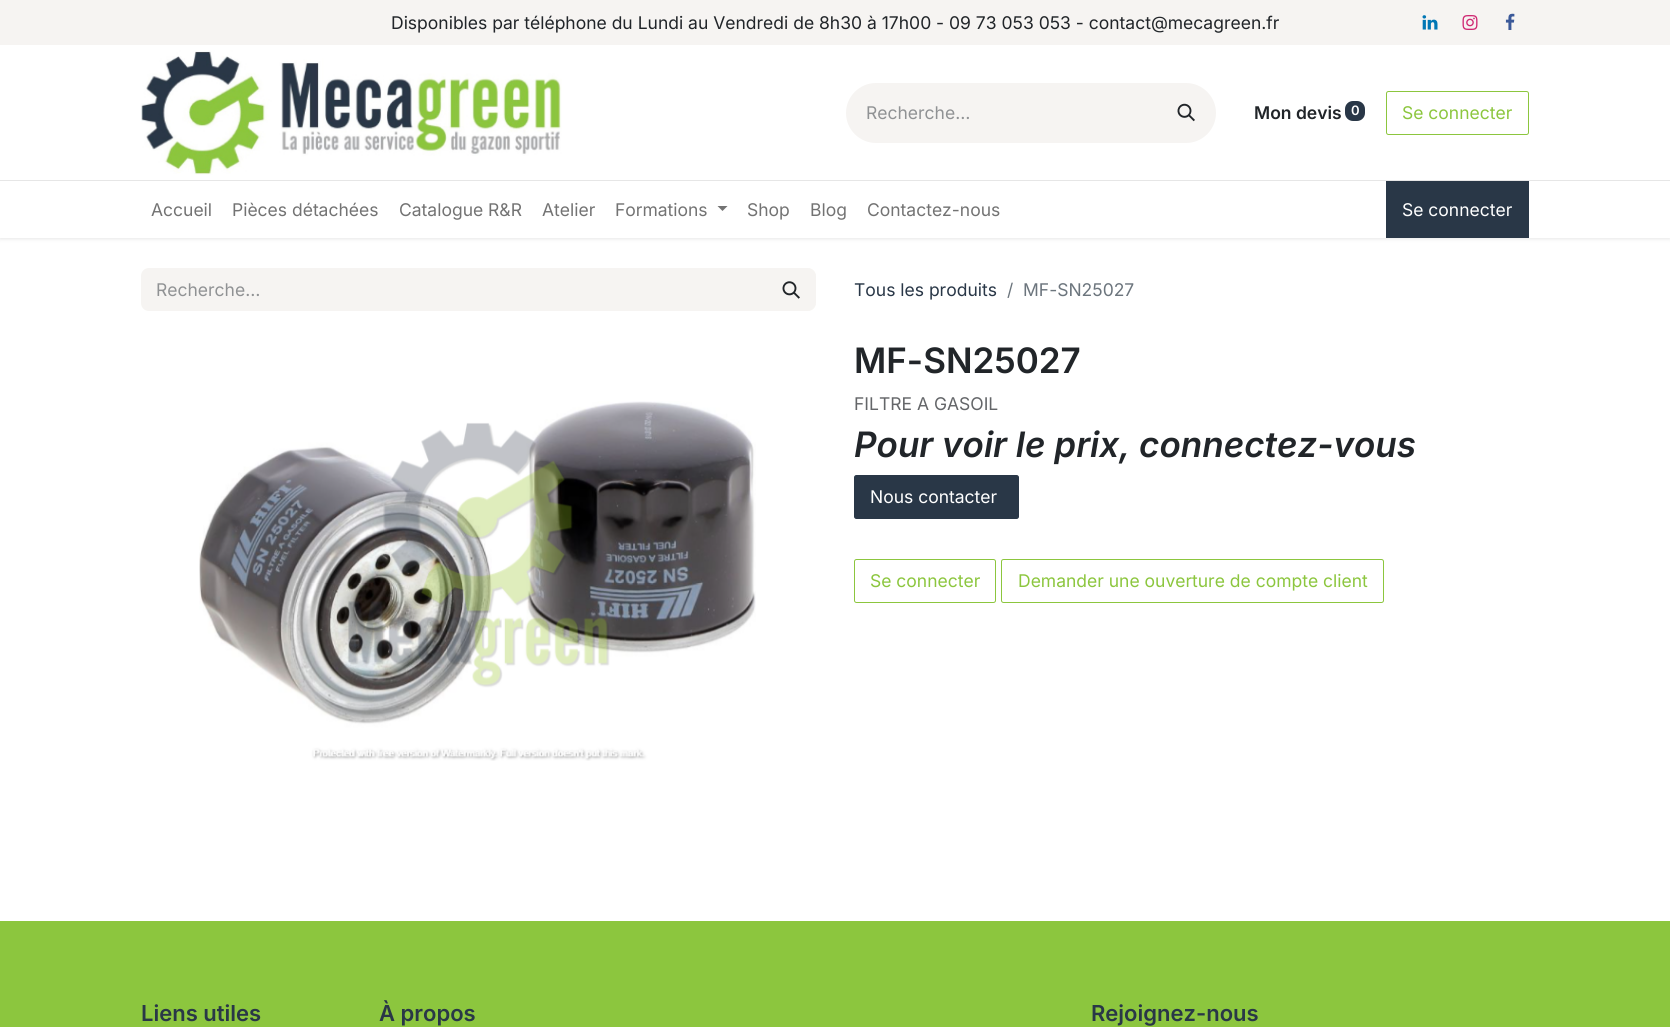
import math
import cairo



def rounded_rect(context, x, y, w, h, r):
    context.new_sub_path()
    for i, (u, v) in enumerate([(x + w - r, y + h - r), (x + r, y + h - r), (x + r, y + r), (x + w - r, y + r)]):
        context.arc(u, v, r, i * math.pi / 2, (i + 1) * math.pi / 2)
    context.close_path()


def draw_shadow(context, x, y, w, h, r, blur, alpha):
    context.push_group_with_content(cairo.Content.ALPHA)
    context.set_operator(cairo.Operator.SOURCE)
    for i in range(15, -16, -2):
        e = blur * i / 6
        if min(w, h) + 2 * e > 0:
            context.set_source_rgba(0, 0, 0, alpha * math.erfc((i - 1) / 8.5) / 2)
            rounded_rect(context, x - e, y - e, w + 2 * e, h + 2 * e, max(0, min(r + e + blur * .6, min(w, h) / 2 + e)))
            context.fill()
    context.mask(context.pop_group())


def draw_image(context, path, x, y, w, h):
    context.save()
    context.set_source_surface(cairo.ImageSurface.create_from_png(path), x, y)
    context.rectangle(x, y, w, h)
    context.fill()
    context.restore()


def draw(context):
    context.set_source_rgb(1, 1, 1)
    context.paint()
    context.set_source_rgb(0, 0, 0)
    draw_shadow(context, 0, 1, 1670, 238, 0, 2, 0.1)
    context.set_source_rgb(1, 1, 1)
    context.rectangle(0, 45, 1670, 193)
    context.fill()
    context.set_source_rgb(246 / 255, 244 / 255, 242 / 255)
    context.rectangle(0, 0, 1670, 45)
    context.fill()
    draw_image(context, "images/1.png", 1422, 15, 16, 15)
    draw_image(context, "images/2.png", 1462, 15, 16, 15)
    draw_image(context, "images/3.png", 1505, 13, 10, 17)
    draw_image(context, "images/4.png", 141, 50, 421, 125)
    context.new_path()
    context.move_to(876, 83)
    context.line_to(1158, 83)
    context.line_to(1158, 143)
    context.line_to(876, 143)
    context.curve_to(859.5, 143, 846, 129.5, 846, 113)
    context.curve_to(846, 96.5, 859.5, 83, 876, 83)
    context.close_path()
    context.fill()
    context.new_path()
    context.move_to(1156, 83)
    context.line_to(1186, 83)
    context.curve_to(1202.5, 83, 1216, 96.5, 1216, 113)
    context.curve_to(1216, 129.5, 1202.5, 143, 1186, 143)
    context.line_to(1156, 143)
    context.close_path()
    context.fill()
    draw_image(context, "images/5.png", 1177, 103, 18, 19)
    context.set_source_rgb(41 / 255, 55 / 255, 71 / 255)
    rounded_rect(context, 1345, 101, 20, 20, 8)
    context.fill()
    rounded_rect(context, 1386.5, 91.5, 142, 43, 2)
    context.set_source_rgb(140 / 255, 198 / 255, 62 / 255)
    context.set_line_width(1)
    context.stroke()
    context.set_source_rgb(230 / 255, 230 / 255, 230 / 255)
    context.rectangle(0, 180, 1670, 1)
    context.fill()
    context.set_source_rgb(115 / 255, 115 / 255, 115 / 255)
    context.new_path()
    context.move_to(717.5, 206)
    context.line_to(727.5, 206)
    context.line_to(722.5, 211)
    context.close_path()
    context.fill()
    context.set_source_rgb(41 / 255, 55 / 255, 71 / 255)
    context.rectangle(1386, 181, 143, 57)
    context.fill()
    context.set_source_rgb(246 / 255, 244 / 255, 242 / 255)
    context.new_path()
    context.move_to(149, 268)
    context.line_to(768, 268)
    context.line_to(768, 311)
    context.line_to(149, 311)
    context.curve_to(144.5, 311, 141, 307.5, 141, 303)
    context.line_to(141, 276)
    context.curve_to(141, 271.5, 144.5, 268, 149, 268)
    context.close_path()
    context.fill()
    context.new_path()
    context.move_to(766.5, 268.5)
    context.line_to(808, 268.5)
    context.curve_to(812, 268.5, 815.5, 272, 815.5, 276)
    context.line_to(815.5, 303)
    context.curve_to(815.5, 307, 812, 310.5, 808, 310.5)
    context.line_to(766.5, 310.5)
    context.close_path()
    context.fill_preserve()
    context.stroke()
    draw_image(context, "images/6.png", 782, 281, 18, 18)
    draw_image(context, "images/7.png", 199, 401, 557, 360)
    context.set_source_rgb(41 / 255, 55 / 255, 71 / 255)
    rounded_rect(context, 854.5, 475.5, 164, 43, 2)
    context.fill_preserve()
    context.stroke()
    rounded_rect(context, 854.5, 559.5, 141, 43, 2)
    context.set_source_rgb(140 / 255, 198 / 255, 62 / 255)
    context.stroke()
    rounded_rect(context, 1001.5, 559.5, 382, 43, 2)
    context.stroke()
    context.rectangle(0, 921, 1670, 106)
    context.fill()
    context.select_font_face("Inter")
    context.set_font_size(17.5)
    context.set_source_rgb(33 / 255, 37 / 255, 41 / 255)
    context.move_to(391, 29)
    context.show_text("Disponibles par téléphone du Lundi au Vendredi de 8h30 à 17h00 - 09 73 053 053 - contact@mecagreen.fr")
    context.set_source_rgb(144 / 255, 146 / 255, 148 / 255)
    context.move_to(866, 119)
    context.show_text("Recherche…")
    context.select_font_face("Inter SemiBold")
    context.set_source_rgb(33 / 255, 37 / 255, 41 / 255)
    context.move_to(1254, 119)
    context.show_text("Mon devis")
    context.set_font_size(13)
    context.set_source_rgb(1, 1, 1)
    context.move_to(1351, 115)
    context.show_text("0")
    context.select_font_face("Inter")
    context.set_font_size(17.5)
    context.set_source_rgb(140 / 255, 198 / 255, 62 / 255)
    context.move_to(1402, 119)
    context.show_text("Se connecter")
    context.set_source_rgb(115 / 255, 115 / 255, 115 / 255)
    context.move_to(151, 216)
    context.show_text("Accueil")
    context.move_to(232, 216)
    context.show_text("Pièces détachées")
    context.move_to(399, 216)
    context.show_text("Catalogue R&R")
    context.move_to(542, 216)
    context.show_text("Atelier")
    context.move_to(615, 216)
    context.show_text("Formations")
    context.move_to(747, 216)
    context.show_text("Shop")
    context.move_to(810, 216)
    context.show_text("Blog")
    context.move_to(867, 216)
    context.show_text("Contactez-nous")
    context.set_source_rgb(1, 1, 1)
    context.move_to(1402, 216)
    context.show_text("Se connecter")
    context.set_source_rgb(144 / 255, 146 / 255, 148 / 255)
    context.move_to(156, 296)
    context.show_text("Recherche…")
    context.set_source_rgb(41 / 255, 55 / 255, 71 / 255)
    context.move_to(854, 296)
    context.show_text("Tous les produits")
    context.set_source_rgb(108 / 255, 117 / 255, 125 / 255)
    context.move_to(1007, 296)
    context.show_text("/")
    context.move_to(1023, 296)
    context.show_text("MF-SN25027")
    context.select_font_face("Inter SemiBold")
    context.set_font_size(35)
    context.set_source_rgb(33 / 255, 37 / 255, 41 / 255)
    context.move_to(854, 373)
    context.show_text("MF-SN25027")
    context.select_font_face("Inter")
    context.set_font_size(17.5)
    context.set_source_rgb(100 / 255, 102 / 255, 105 / 255)
    context.move_to(854, 410)
    context.show_text("FILTRE A GASOIL")
    context.select_font_face("Inter SemiBold", cairo.FontSlant.ITALIC)
    context.set_font_size(35)
    context.set_source_rgb(33 / 255, 37 / 255, 41 / 255)
    context.move_to(854, 457)
    context.show_text("Pour voir le prix, connectez-vous")
    context.select_font_face("Inter")
    context.set_font_size(17.5)
    context.set_source_rgb(1, 1, 1)
    context.move_to(870, 503)
    context.show_text("Nous contacter")
    context.set_source_rgb(140 / 255, 198 / 255, 62 / 255)
    context.move_to(870, 587)
    context.show_text("Se connecter")
    context.move_to(1018, 587)
    context.show_text("Demander une ouverture de compte client")
    context.select_font_face("Inter SemiBold")
    context.set_font_size(22)
    context.set_source_rgb(41 / 255, 55 / 255, 71 / 255)
    context.move_to(141, 1021)
    context.show_text("Liens utiles")
    context.move_to(379, 1021)
    context.show_text("À propos")
    context.move_to(1091, 1021)
    context.show_text("Rejoignez-nous")


surface = cairo.ImageSurface(cairo.Format.RGB24, 1670, 1027)
context = cairo.Context(surface)
options = cairo.FontOptions()
options.set_hint_metrics(cairo.HintMetrics.OFF)
options.set_hint_style(cairo.HintStyle.NONE)
context.set_font_options(options)
context.set_miter_limit(4)
draw(context)
surface.write_to_png("out.png")
